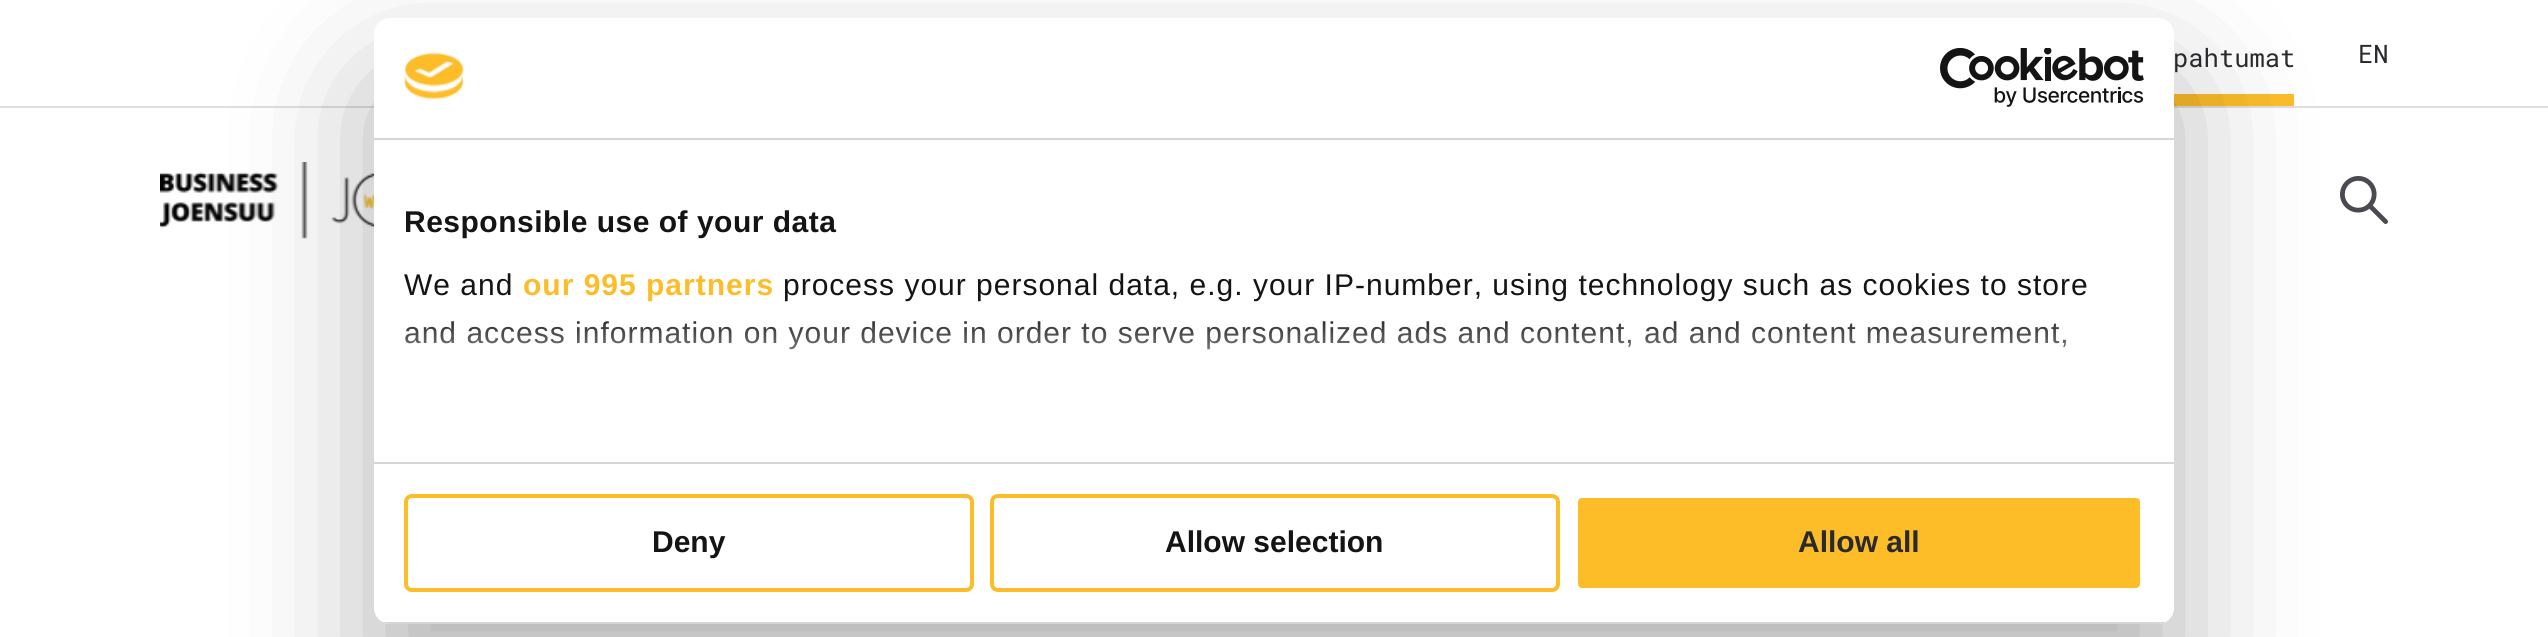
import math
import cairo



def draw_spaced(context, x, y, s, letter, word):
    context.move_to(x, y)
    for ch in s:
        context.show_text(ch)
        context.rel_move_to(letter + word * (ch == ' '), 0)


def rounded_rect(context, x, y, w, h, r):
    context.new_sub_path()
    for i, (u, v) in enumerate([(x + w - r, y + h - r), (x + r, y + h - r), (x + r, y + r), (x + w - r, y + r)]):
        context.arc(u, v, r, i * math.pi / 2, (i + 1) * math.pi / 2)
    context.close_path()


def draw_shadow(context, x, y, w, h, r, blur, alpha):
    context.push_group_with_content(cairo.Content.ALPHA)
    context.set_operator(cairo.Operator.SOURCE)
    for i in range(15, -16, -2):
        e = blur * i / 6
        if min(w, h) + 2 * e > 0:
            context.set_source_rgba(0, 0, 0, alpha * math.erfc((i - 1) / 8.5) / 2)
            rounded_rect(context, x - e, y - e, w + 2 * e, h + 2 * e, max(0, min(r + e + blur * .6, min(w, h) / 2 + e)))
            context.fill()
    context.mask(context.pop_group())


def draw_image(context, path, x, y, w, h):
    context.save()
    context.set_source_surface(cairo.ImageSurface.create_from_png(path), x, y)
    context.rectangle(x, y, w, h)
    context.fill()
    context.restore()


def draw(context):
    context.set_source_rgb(1, 1, 1)
    context.paint()
    context.set_source_rgb(223 / 255, 223 / 255, 224 / 255)
    context.rectangle(0, 106, 2548, 2)
    context.fill()
    context.set_source_rgb(252 / 255, 189 / 255, 41 / 255)
    context.rectangle(2174, 94, 120, 12)
    context.fill()
    draw_image(context, "images/1.png", 160, 162, 214, 77)
    draw_image(context, "images/2.png", 2340, 176, 48, 48)
    context.set_source_rgb(0, 0, 0)
    draw_shadow(context, 374, 82, 1800, 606, 16, 68, 0.3)
    context.set_source_rgb(1, 1, 1)
    rounded_rect(context, 374, 18, 1800, 606, 16)
    context.fill()
    context.set_source_rgb(214 / 255, 214 / 255, 214 / 255)
    context.rectangle(374, 138, 1800, 2)
    context.fill()
    draw_image(context, "images/3.png", 404, 53, 60, 46)
    draw_image(context, "images/4.png", 1940, 48, 204, 59)
    context.rectangle(374, 462, 1800, 2)
    context.fill()
    context.save()
    rounded_rect(context, 374, 18, 1800, 606, 16)
    context.clip()
    context.rectangle(374, 622, 1800, 2)
    context.fill()
    context.restore()
    rounded_rect(context, 406, 496, 566, 94, 6)
    context.set_source_rgb(252 / 255, 189 / 255, 41 / 255)
    context.set_line_width(4)
    context.stroke()
    rounded_rect(context, 992, 496, 566, 94, 6)
    context.stroke()
    rounded_rect(context, 1576, 496, 566, 94, 6)
    context.fill_preserve()
    context.set_source_rgb(1, 1, 1)
    context.stroke()
    context.select_font_face("Roboto Mono")
    context.set_font_size(25.5)
    context.set_source_rgb(42 / 255, 42 / 255, 46 / 255)
    context.move_to(2173, 67)
    context.show_text("pahtumat")
    context.move_to(2358, 63)
    context.show_text("EN")
    context.select_font_face("Liberation Sans", cairo.FontSlant.NORMAL, cairo.FontWeight.BOLD)
    context.set_font_size(30)
    context.set_source_rgb(20 / 255, 20 / 255, 20 / 255)
    draw_spaced(context, 404, 232, "Responsible use of your data", 0.5, 0)
    context.select_font_face("Liberation Sans")
    draw_spaced(context, 404, 295, "We and", 1, 0)
    context.select_font_face("Liberation Sans", cairo.FontSlant.NORMAL, cairo.FontWeight.BOLD)
    context.set_source_rgb(252 / 255, 189 / 255, 41 / 255)
    draw_spaced(context, 523, 295, "our 995 partners", 1, 0)
    context.select_font_face("Liberation Sans")
    context.set_source_rgb(20 / 255, 20 / 255, 20 / 255)
    draw_spaced(context, 783, 295, "process your personal data, e.g. your IP-number, using technology such as cookies to store", 1, 0)
    draw_spaced(context, 404, 343, "and access information on your device in order to serve personalized ads and content, ad and content measurement,", 1, 0)
    gradient = cairo.LinearGradient(1261, 461, 1261, 311)
    gradient.add_color_stop_rgba(0, 1, 1, 1, 1)
    gradient.add_color_stop_rgba(0.5, 1, 1, 1, 0.8)
    gradient.add_color_stop_rgba(1, 1, 1, 1, 0)
    context.set_source(gradient)
    context.rectangle(405, 321, 1661, 29)
    context.fill()
    context.select_font_face("Liberation Sans", cairo.FontSlant.NORMAL, cairo.FontWeight.BOLD)
    context.set_source_rgb(20 / 255, 20 / 255, 20 / 255)
    context.move_to(652, 552)
    context.show_text("Deny")
    context.move_to(1165, 552)
    context.show_text("Allow selection")
    context.set_source_rgb(42 / 255, 42 / 255, 46 / 255)
    context.move_to(1798, 552)
    context.show_text("Allow all")


surface = cairo.ImageSurface(cairo.Format.RGB24, 2548, 637)
context = cairo.Context(surface)
options = cairo.FontOptions()
options.set_hint_metrics(cairo.HintMetrics.OFF)
options.set_hint_style(cairo.HintStyle.NONE)
context.set_font_options(options)
context.set_miter_limit(4)
draw(context)
surface.write_to_png("out.png")
